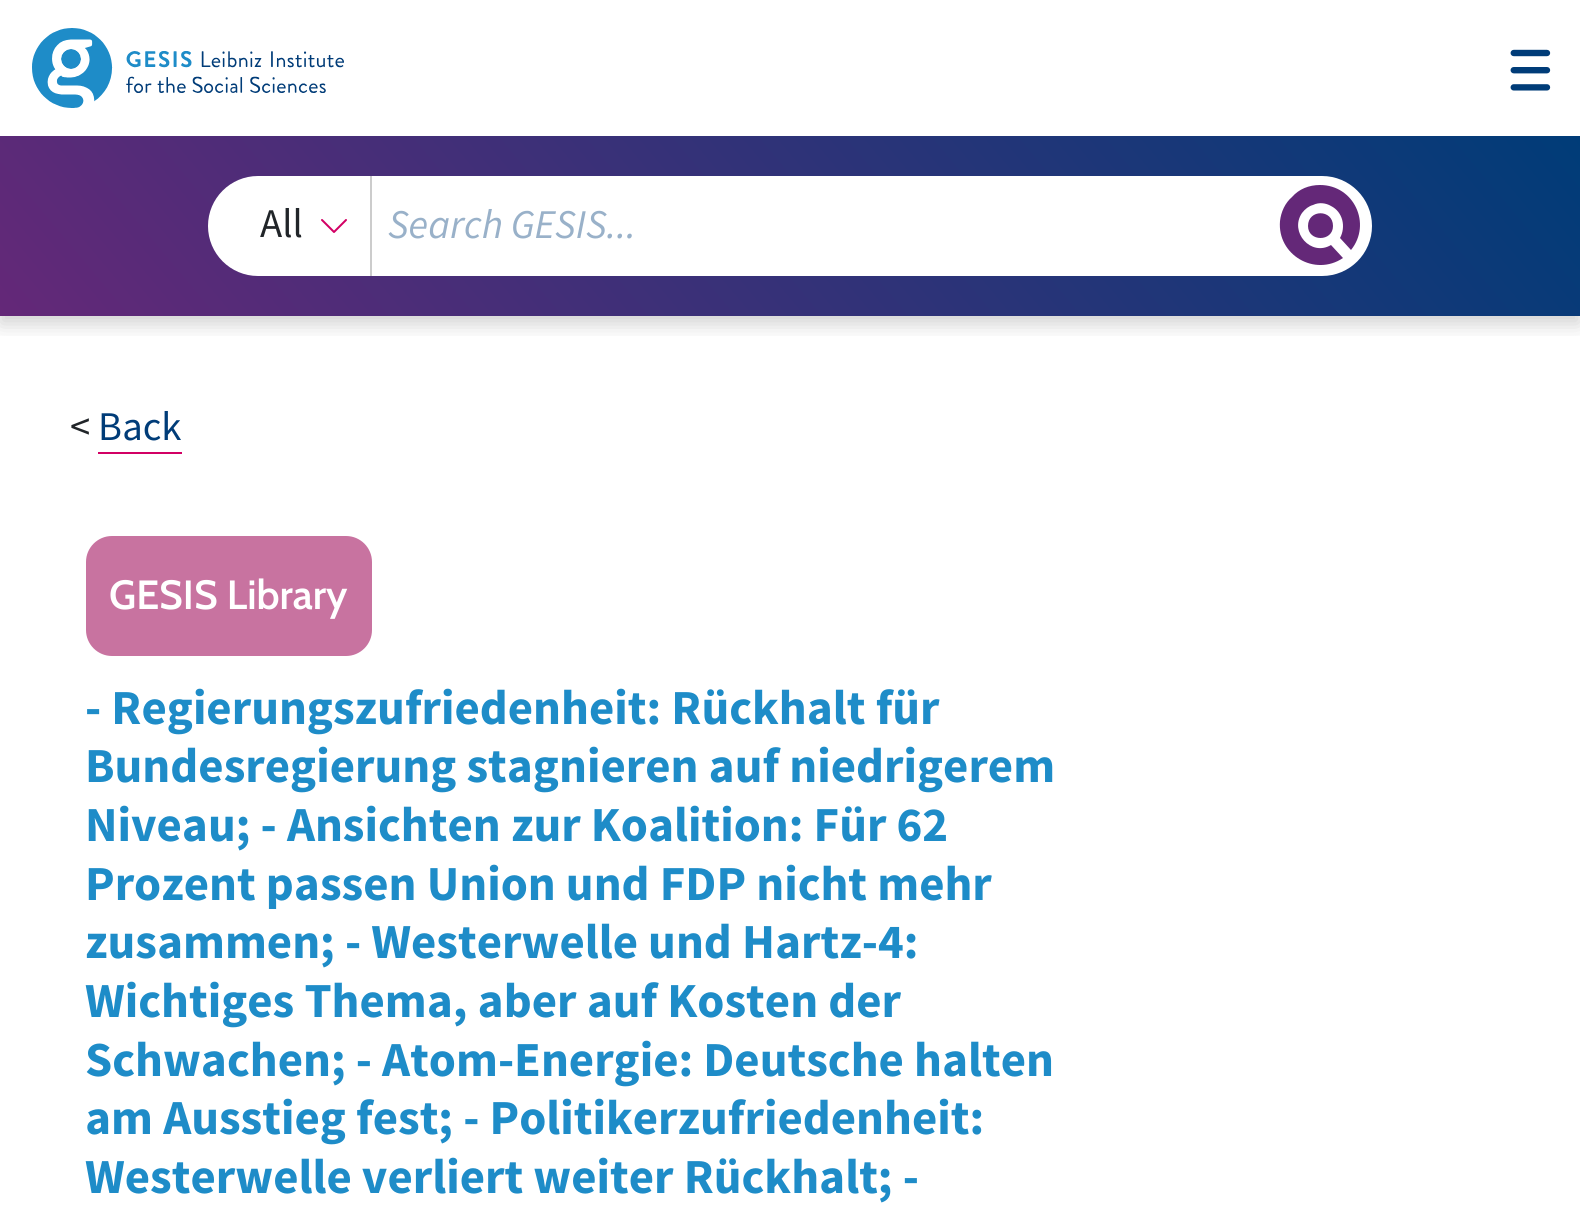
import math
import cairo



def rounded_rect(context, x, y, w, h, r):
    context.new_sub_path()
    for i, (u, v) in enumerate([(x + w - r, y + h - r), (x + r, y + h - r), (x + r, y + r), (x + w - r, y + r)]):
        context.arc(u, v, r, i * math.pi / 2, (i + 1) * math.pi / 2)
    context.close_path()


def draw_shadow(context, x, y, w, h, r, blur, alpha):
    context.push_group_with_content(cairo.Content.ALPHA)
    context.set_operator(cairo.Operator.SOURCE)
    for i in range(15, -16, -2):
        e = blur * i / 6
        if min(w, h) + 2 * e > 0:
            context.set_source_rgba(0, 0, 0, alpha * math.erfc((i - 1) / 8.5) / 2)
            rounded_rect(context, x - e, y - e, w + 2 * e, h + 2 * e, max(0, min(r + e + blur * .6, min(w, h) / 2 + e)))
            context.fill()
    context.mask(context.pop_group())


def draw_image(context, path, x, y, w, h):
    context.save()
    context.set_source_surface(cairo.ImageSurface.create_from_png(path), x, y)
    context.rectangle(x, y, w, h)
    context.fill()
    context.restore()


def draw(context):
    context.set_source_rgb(1, 1, 1)
    context.paint()
    context.save()
    context.rectangle(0, 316, 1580, 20)
    context.clip()
    context.set_source_rgb(0, 0, 0)
    draw_shadow(context, 0, 8, 1580, 316, 0, 10, 0.18)
    context.restore()
    draw_image(context, "images/1.png", 32, 28, 312, 80)
    draw_image(context, "images/2.png", 1510, 49, 41, 42)
    gradient = cairo.LinearGradient(282, 652, 1298, -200)
    gradient.add_color_stop_rgba(0, 100 / 255, 40 / 255, 120 / 255, 1)
    gradient.add_color_stop_rgba(1, 0, 60 / 255, 120 / 255, 1)
    context.set_source(gradient)
    context.rectangle(0, 136, 1580, 180)
    context.fill()
    context.set_source_rgb(1, 1, 1)
    rounded_rect(context, 208, 176, 1164, 100, 50)
    context.fill()
    draw_image(context, "images/3.png", 321, 219, 26, 14)
    context.set_source_rgb(204 / 255, 204 / 255, 204 / 255)
    context.rectangle(370, 176, 2, 100)
    context.fill()
    context.set_source_rgb(100 / 255, 40 / 255, 120 / 255)
    context.new_path()
    context.move_to(1333, 226)
    context.curve_to(1333, 242, 1308, 242, 1308, 226)
    context.curve_to(1308, 209, 1333, 209, 1333, 226)
    context.close_path()
    context.move_to(1320, 185)
    context.curve_to(1309, 185, 1299, 189, 1292, 197)
    context.curve_to(1285, 203, 1281, 212, 1280, 221)
    context.curve_to(1277, 255, 1315, 277, 1343, 258)
    context.line_to(1331, 245)
    context.curve_to(1311, 257, 1289, 232, 1302, 213)
    context.curve_to(1305, 209, 1309, 206, 1313, 205)
    context.curve_to(1319, 202, 1326, 203, 1331, 206)
    context.curve_to(1343, 212, 1346, 227, 1340, 238)
    context.line_to(1351, 250)
    context.curve_to(1372, 224, 1354, 185, 1320, 185)
    context.close_path()
    context.move_to(1351, 250)
    context.line_to(1340, 238)
    context.close_path()
    context.fill()
    context.set_source_rgb(210 / 255, 0, 100 / 255)
    context.rectangle(98, 452, 84, 2)
    context.fill()
    context.set_source_rgb(200 / 255, 115 / 255, 160 / 255)
    rounded_rect(context, 88, 538, 282, 116, 24)
    context.fill_preserve()
    context.set_line_width(4)
    context.stroke()
    context.select_font_face("Source Sans Pro")
    context.set_font_size(40.75)
    context.set_source_rgb(33 / 255, 37 / 255, 41 / 255)
    context.move_to(260, 237)
    context.show_text("All")
    context.select_font_face("Source Sans Pro", cairo.FontSlant.ITALIC)
    context.set_source_rgb(153 / 255, 177 / 255, 201 / 255)
    context.move_to(388, 238)
    context.show_text("Search GESIS...")
    context.select_font_face("Source Sans Pro")
    context.set_source_rgb(33 / 255, 37 / 255, 41 / 255)
    context.move_to(70, 440)
    context.show_text("<")
    context.set_source_rgb(0, 60 / 255, 120 / 255)
    context.move_to(98, 440)
    context.show_text("Back")
    context.select_font_face("Cabin SemiBold")
    context.set_source_rgb(1, 1, 1)
    context.move_to(109, 609)
    context.show_text("GESIS Library")
    context.select_font_face("Source Sans Pro", cairo.FontSlant.NORMAL, cairo.FontWeight.BOLD)
    context.set_font_size(48.9)
    context.set_source_rgb(30 / 255, 140 / 255, 200 / 255)
    context.move_to(85, 724)
    context.show_text("- Regierungszufriedenheit: Rückhalt für")
    context.move_to(85, 782)
    context.show_text("Bundesregierung stagnieren auf niedrigerem")
    context.move_to(85, 841)
    context.show_text("Niveau; - Ansichten zur Koalition: Für 62")
    context.move_to(85, 900)
    context.show_text("Prozent passen Union und FDP nicht mehr")
    context.move_to(85, 958)
    context.show_text("zusammen; - Westerwelle und Hartz-4:")
    context.move_to(85, 1017)
    context.show_text("Wichtiges Thema, aber auf Kosten der")
    context.move_to(85, 1076)
    context.show_text("Schwachen; - Atom-Energie: Deutsche halten")
    context.move_to(85, 1134)
    context.show_text("am Ausstieg fest; - Politikerzufriedenheit:")
    context.move_to(85, 1193)
    context.show_text("Westerwelle verliert weiter Rückhalt; -")


surface = cairo.ImageSurface(cairo.Format.RGB24, 1580, 1215)
context = cairo.Context(surface)
options = cairo.FontOptions()
options.set_hint_metrics(cairo.HintMetrics.OFF)
options.set_hint_style(cairo.HintStyle.NONE)
context.set_font_options(options)
context.set_miter_limit(4)
draw(context)
surface.write_to_png("out.png")
